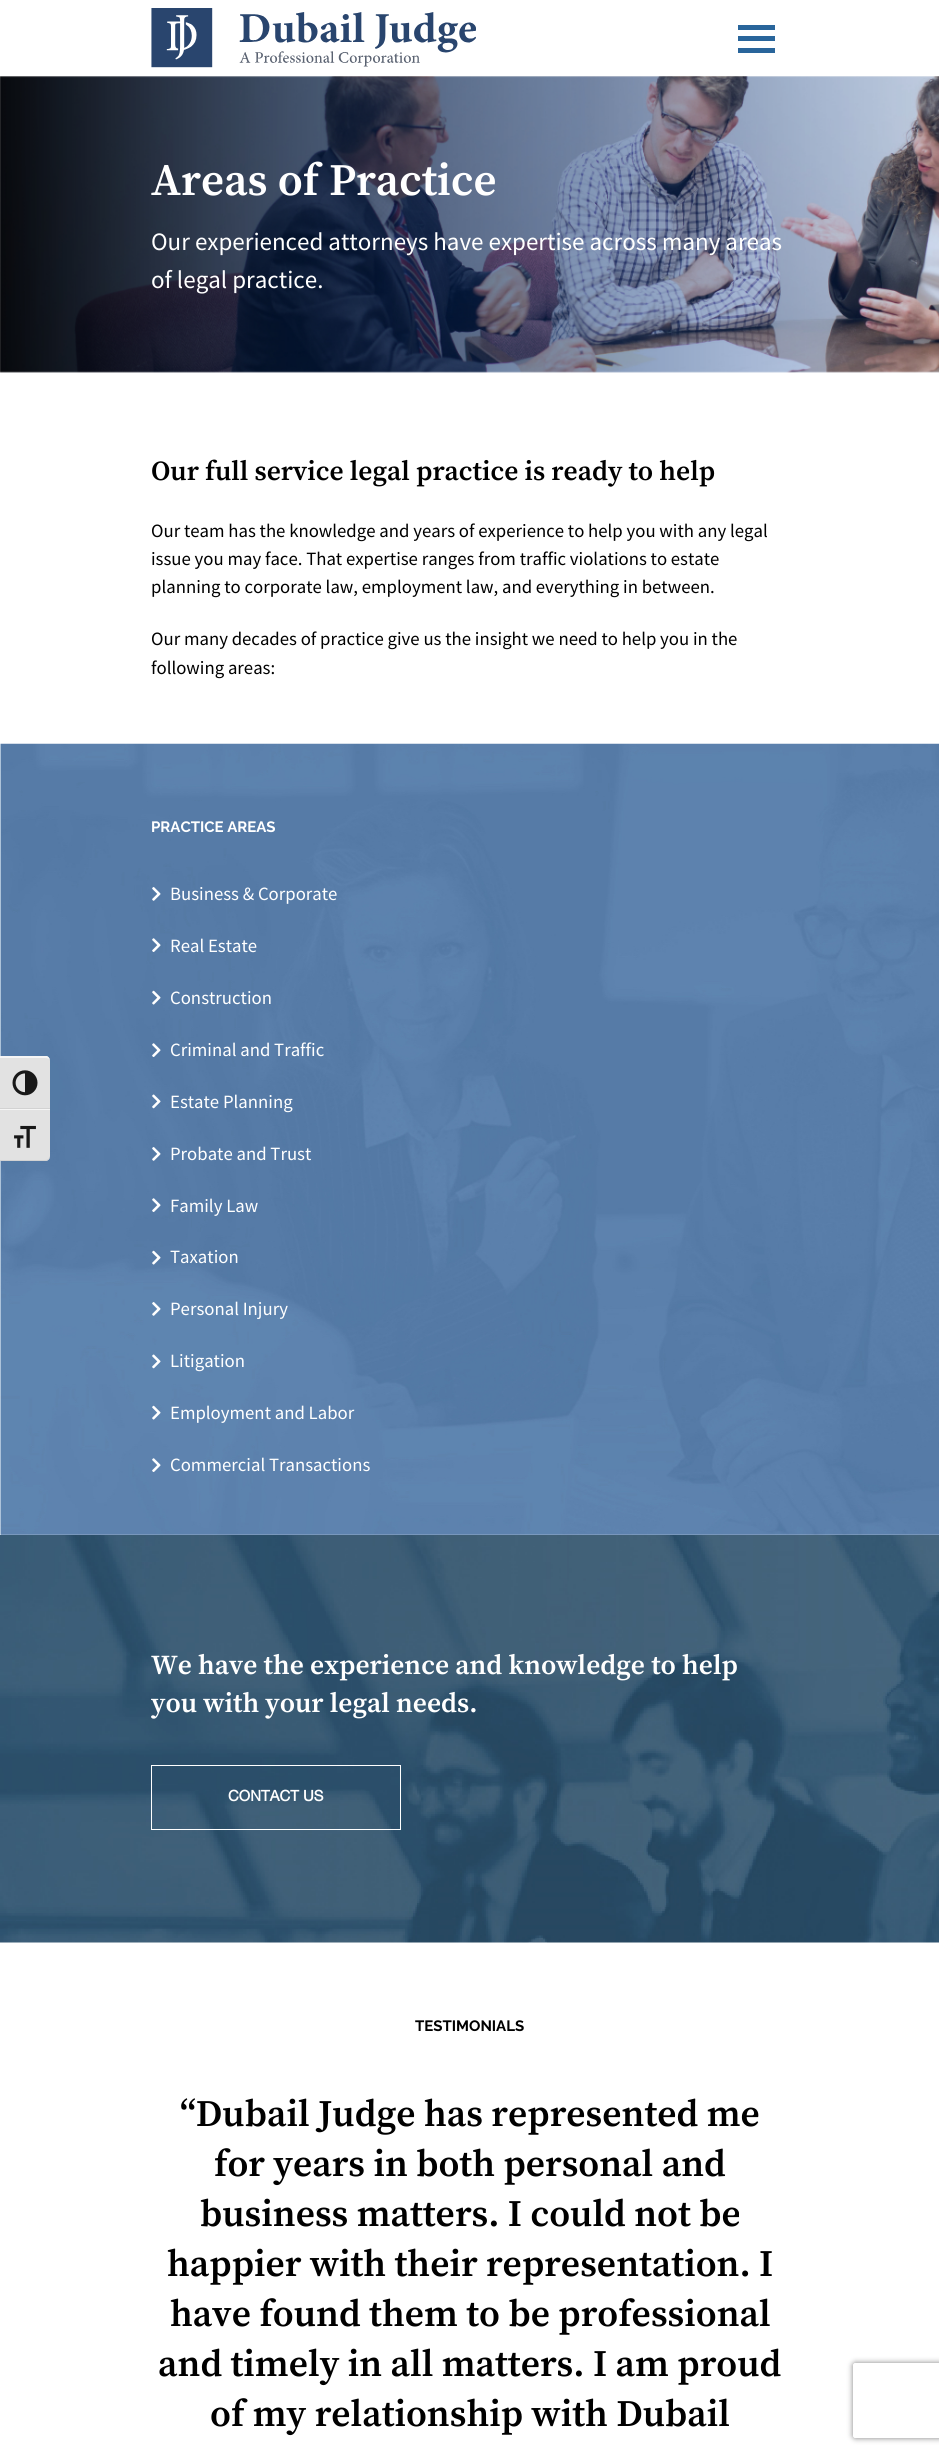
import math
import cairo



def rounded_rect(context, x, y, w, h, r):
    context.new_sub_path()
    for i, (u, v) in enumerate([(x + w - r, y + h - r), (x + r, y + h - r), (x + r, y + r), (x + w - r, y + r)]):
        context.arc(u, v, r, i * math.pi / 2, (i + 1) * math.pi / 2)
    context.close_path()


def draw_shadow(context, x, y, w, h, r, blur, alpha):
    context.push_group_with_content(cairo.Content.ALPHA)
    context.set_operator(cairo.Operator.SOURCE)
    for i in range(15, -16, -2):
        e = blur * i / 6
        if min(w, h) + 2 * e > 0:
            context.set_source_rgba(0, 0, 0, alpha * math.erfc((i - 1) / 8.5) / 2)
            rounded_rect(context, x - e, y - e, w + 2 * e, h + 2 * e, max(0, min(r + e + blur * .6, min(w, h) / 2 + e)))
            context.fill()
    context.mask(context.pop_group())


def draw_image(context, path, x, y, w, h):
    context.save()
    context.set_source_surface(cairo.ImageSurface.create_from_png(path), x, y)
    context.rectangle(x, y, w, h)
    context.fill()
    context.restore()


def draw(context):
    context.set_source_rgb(1, 1, 1)
    context.paint()
    draw_image(context, "images/1.png", 151, 8, 325, 60)
    context.set_source_rgb(41 / 255, 101 / 255, 155 / 255)
    context.rectangle(738, 25, 37, 5)
    context.fill()
    context.rectangle(738, 36, 37, 5)
    context.fill()
    context.rectangle(738, 48, 37, 5)
    context.fill()
    draw_image(context, "images/2.png", 0, 76, 939, 297)
    draw_image(context, "images/5.png", 0, 743, 939, 792)
    context.set_source_rgb(226 / 255, 226 / 255, 226 / 255)
    context.new_path()
    context.move_to(0, 1056)
    context.line_to(45, 1056)
    context.curve_to(48, 1056, 50, 1058, 50, 1061)
    context.line_to(50, 1109)
    context.line_to(0, 1109)
    context.close_path()
    context.fill()
    context.set_source_rgb(245 / 255, 245 / 255, 245 / 255)
    context.new_path()
    context.move_to(0, 1058)
    context.line_to(45, 1058)
    context.curve_to(48, 1058, 50, 1059, 50, 1061)
    context.curve_to(50, 1059, 49, 1057, 47, 1056)
    context.line_to(0, 1056)
    context.close_path()
    context.fill()
    context.set_source_rgb(210 / 255, 210 / 255, 210 / 255)
    context.rectangle(0, 1108, 50, 1)
    context.fill()
    draw_image(context, "images/3.png", 12, 1070, 26, 26)
    context.set_source_rgb(226 / 255, 226 / 255, 226 / 255)
    context.new_path()
    context.move_to(0, 1109)
    context.line_to(50, 1109)
    context.line_to(50, 1156)
    context.curve_to(50, 1159, 48, 1161, 45, 1161)
    context.line_to(0, 1161)
    context.close_path()
    context.fill()
    context.set_source_rgb(245 / 255, 245 / 255, 245 / 255)
    context.rectangle(0, 1109, 50, 1)
    context.fill()
    context.set_source_rgb(210 / 255, 210 / 255, 210 / 255)
    context.new_path()
    context.move_to(0, 1160)
    context.line_to(0, 1161)
    context.line_to(45, 1161)
    context.curve_to(48, 1161, 50, 1159, 50, 1156)
    context.curve_to(50, 1158, 48, 1160, 45, 1160)
    context.close_path()
    context.fill()
    draw_image(context, "images/4.png", 14, 1125, 22, 23)
    draw_image(context, "images/6.png", 152, 887, 9, 14)
    draw_image(context, "images/7.png", 152, 938, 9, 14)
    draw_image(context, "images/8.png", 152, 990, 9, 15)
    draw_image(context, "images/9.png", 152, 1043, 9, 14)
    draw_image(context, "images/10.png", 152, 1094, 9, 15)
    draw_image(context, "images/11.png", 152, 1147, 9, 14)
    draw_image(context, "images/12.png", 152, 1198, 9, 14)
    draw_image(context, "images/13.png", 152, 1250, 9, 15)
    draw_image(context, "images/14.png", 152, 1302, 9, 14)
    draw_image(context, "images/15.png", 152, 1354, 9, 15)
    draw_image(context, "images/16.png", 152, 1405, 9, 15)
    draw_image(context, "images/17.png", 152, 1458, 9, 14)
    draw_image(context, "images/18.png", 0, 1535, 939, 408)
    context.rectangle(151.5, 1765.5, 249, 64)
    context.set_source_rgb(1, 1, 1)
    context.set_line_width(1)
    context.stroke()
    context.save()
    context.set_fill_rule(cairo.FillRule.EVEN_ODD)
    context.new_path()
    context.move_to(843, 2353)
    context.line_to(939, 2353)
    context.line_to(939, 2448)
    context.line_to(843, 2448)
    context.close_path()
    context.move_to(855.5, 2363)
    context.line_to(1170.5, 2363)
    context.curve_to(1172, 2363, 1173, 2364, 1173, 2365.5)
    context.line_to(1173, 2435.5)
    context.curve_to(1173, 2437, 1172, 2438, 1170.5, 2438)
    context.line_to(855.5, 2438)
    context.curve_to(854, 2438, 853, 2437, 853, 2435.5)
    context.line_to(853, 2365.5)
    context.curve_to(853, 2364, 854, 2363, 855.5, 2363)
    context.close_path()
    context.clip()
    context.set_source_rgb(128 / 255, 128 / 255, 128 / 255)
    draw_shadow(context, 853, 2363, 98, 75, 2.5, 3, 1)
    context.restore()
    context.select_font_face("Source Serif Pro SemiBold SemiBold")
    context.set_font_size(45)
    context.move_to(151, 195)
    context.show_text("Areas of Practice")
    context.select_font_face("Source Sans Pro")
    context.set_font_size(25)
    context.move_to(151, 250)
    context.show_text("Our experienced attorneys have expertise across many areas")
    context.move_to(151, 288)
    context.show_text("of legal practice.")
    context.select_font_face("Source Serif Pro SemiBold SemiBold")
    context.set_font_size(27.5)
    context.set_source_rgb(0, 0, 0)
    context.move_to(151, 480)
    context.show_text("Our full service legal practice is ready to help")
    context.select_font_face("Source Sans Pro")
    context.set_font_size(18.75)
    context.move_to(151, 537)
    context.show_text("Our team has the knowledge and years of experience to help you with any legal")
    context.move_to(151, 565)
    context.show_text("issue you may face. That expertise ranges from traffic violations to estate")
    context.move_to(151, 593)
    context.show_text("planning to corporate law, employment law, and everything in between.")
    context.move_to(151, 645)
    context.show_text("Our many decades of practice give us the insight we need to help you in the")
    context.move_to(151, 674)
    context.show_text("following areas:")
    context.select_font_face("Raleway", cairo.FontSlant.NORMAL, cairo.FontWeight.BOLD)
    context.set_font_size(15)
    context.set_source_rgb(1, 1, 1)
    context.move_to(151, 832)
    context.show_text("PRACTICE AREAS")
    context.select_font_face("Source Sans Pro")
    context.set_font_size(18.75)
    context.move_to(170, 900)
    context.show_text("Business & Corporate")
    context.move_to(170, 952)
    context.show_text("Real Estate")
    context.move_to(170, 1004)
    context.show_text("Construction")
    context.move_to(170, 1056)
    context.show_text("Criminal and Traffic")
    context.move_to(170, 1108)
    context.show_text("Estate Planning")
    context.move_to(170, 1160)
    context.show_text("Probate and Trust")
    context.move_to(170, 1212)
    context.show_text("Family Law")
    context.move_to(170, 1263)
    context.show_text("Taxation")
    context.move_to(170, 1315)
    context.show_text("Personal Injury")
    context.move_to(170, 1367)
    context.show_text("Litigation")
    context.move_to(170, 1419)
    context.show_text("Employment and Labor")
    context.move_to(170, 1471)
    context.show_text("Commercial Transactions")
    context.select_font_face("Source Serif Pro SemiBold SemiBold")
    context.set_font_size(27.5)
    context.move_to(151, 1674)
    context.show_text("We have the experience and knowledge to help")
    context.move_to(151, 1712)
    context.show_text("you with your legal needs.")
    context.select_font_face("Helvetica Neue", cairo.FontSlant.NORMAL, cairo.FontWeight.BOLD)
    context.set_font_size(15)
    context.move_to(228, 1801)
    context.show_text("CONTACT US")
    context.select_font_face("Raleway", cairo.FontSlant.NORMAL, cairo.FontWeight.BOLD)
    context.set_source_rgb(0, 0, 0)
    context.move_to(415, 2031)
    context.show_text("TESTIMONIALS")
    context.select_font_face("Source Serif Pro SemiBold SemiBold")
    context.set_font_size(37.5)
    context.move_to(180, 2126)
    context.show_text("“Dubail Judge has represented me")
    context.move_to(214, 2176)
    context.show_text("for years in both personal and")
    context.move_to(200, 2226)
    context.show_text("business matters. I could not be")
    context.move_to(167, 2276)
    context.show_text("happier with their representation. I")
    context.move_to(170, 2326)
    context.show_text("have found them to be professional")
    context.move_to(158, 2376)
    context.show_text("and timely in all matters. I am proud")
    context.move_to(210, 2426)
    context.show_text("of my relationship with Dubail")


surface = cairo.ImageSurface(cairo.Format.RGB24, 939, 2454)
context = cairo.Context(surface)
options = cairo.FontOptions()
options.set_hint_metrics(cairo.HintMetrics.OFF)
options.set_hint_style(cairo.HintStyle.NONE)
context.set_font_options(options)
context.set_miter_limit(4)
draw(context)
surface.write_to_png("out.png")
